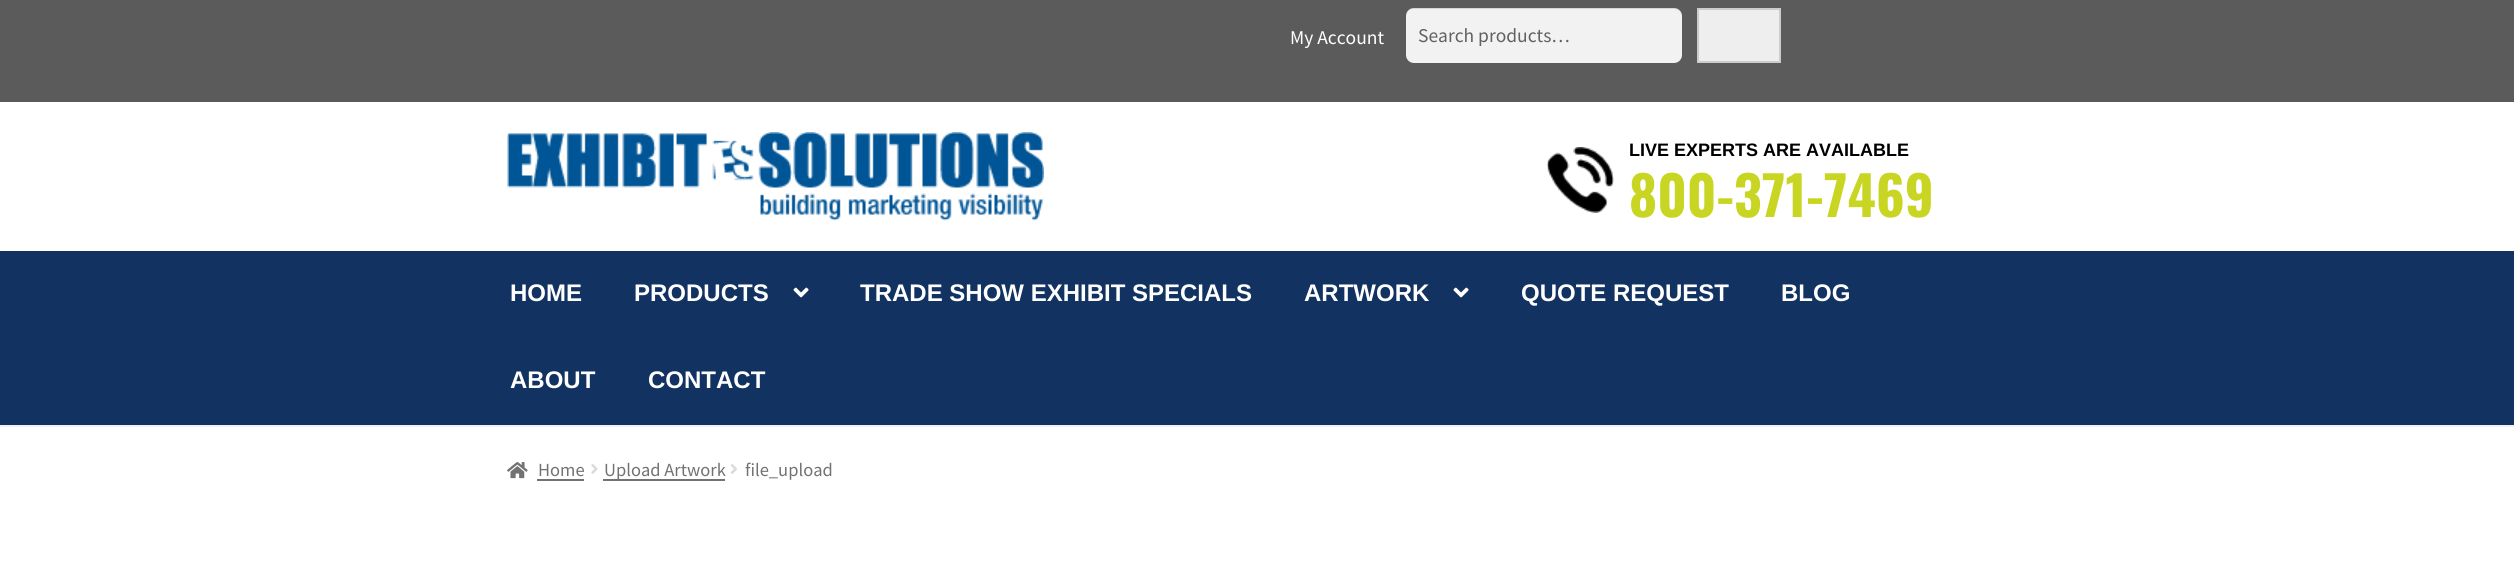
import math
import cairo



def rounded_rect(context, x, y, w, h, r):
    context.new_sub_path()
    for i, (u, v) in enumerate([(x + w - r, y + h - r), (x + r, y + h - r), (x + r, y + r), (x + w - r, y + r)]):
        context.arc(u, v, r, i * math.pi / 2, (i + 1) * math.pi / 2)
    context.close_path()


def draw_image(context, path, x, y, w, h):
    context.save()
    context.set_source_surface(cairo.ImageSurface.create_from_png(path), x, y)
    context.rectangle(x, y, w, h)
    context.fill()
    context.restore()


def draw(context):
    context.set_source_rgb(1, 1, 1)
    context.paint()
    context.set_source_rgb(91 / 255, 91 / 255, 91 / 255)
    context.rectangle(0, 0, 2514, 102)
    context.fill()
    context.set_source_rgb(242 / 255, 242 / 255, 242 / 255)
    rounded_rect(context, 1406, 8, 276, 55, 8)
    context.fill()
    context.set_source_rgba(0, 0, 0, 0.12)
    context.new_path()
    context.move_to(1413, 9)
    context.line_to(1674, 9)
    context.curve_to(1678, 9, 1682, 12, 1682, 16)
    context.curve_to(1682, 12, 1678, 8, 1674, 8)
    context.line_to(1414, 8)
    context.curve_to(1410, 8, 1406, 12, 1406, 16)
    context.curve_to(1406, 12, 1409, 9, 1413, 9)
    context.close_path()
    context.fill()
    context.set_source_rgb(238 / 255, 238 / 255, 238 / 255)
    context.rectangle(1698, 9, 82, 53)
    context.fill_preserve()
    context.set_source_rgb(204 / 255, 204 / 255, 204 / 255)
    context.stroke()
    context.set_source_rgb(240 / 255, 240 / 255, 240 / 255)
    context.rectangle(0, 425, 2514, 2)
    context.fill()
    draw_image(context, "images/1.png", 507, 132, 537, 89)
    draw_image(context, "images/2.png", 1546, 147, 68, 66)
    context.set_source_rgb(18 / 255, 50 / 255, 97 / 255)
    context.rectangle(0, 251, 2514, 174)
    context.fill()
    draw_image(context, "images/3.png", 793, 287, 16, 11)
    draw_image(context, "images/3.png", 1453, 287, 16, 11)
    draw_image(context, "images/4.png", 507, 462, 21, 17)
    context.set_source_rgb(114 / 255, 114 / 255, 114 / 255)
    context.rectangle(537, 479, 47, 2)
    context.fill()
    draw_image(context, "images/5.png", 591, 464, 7, 10)
    context.rectangle(603, 479, 122, 2)
    context.fill()
    draw_image(context, "images/6.png", 730, 464, 7, 10)
    context.select_font_face("Source Sans Pro")
    context.set_font_size(19.5)
    context.set_source_rgb(1, 1, 1)
    context.move_to(1290, 44)
    context.show_text("My Account")
    context.set_source_rgb(97 / 255, 97 / 255, 97 / 255)
    context.move_to(1418, 42)
    context.show_text("Search products…")
    context.select_font_face("Liberation Sans", cairo.FontSlant.NORMAL, cairo.FontWeight.BOLD)
    context.set_font_size(18)
    context.set_source_rgb(0, 0, 0)
    context.move_to(1629, 156)
    context.show_text("LIVE EXPERTS ARE AVAILABLE")
    context.select_font_face("Oswald", cairo.FontSlant.NORMAL, cairo.FontWeight.BOLD)
    context.set_font_size(54)
    context.set_source_rgb(200 / 255, 214 / 255, 35 / 255)
    context.move_to(1629, 217)
    context.show_text("800-371-7469")
    context.select_font_face("Liberation Sans", cairo.FontSlant.NORMAL, cairo.FontWeight.BOLD)
    context.set_font_size(24)
    context.set_source_rgb(1, 1, 1)
    context.move_to(510, 301)
    context.show_text("HOME")
    context.move_to(634, 301)
    context.show_text("PRODUCTS")
    context.move_to(860, 301)
    context.show_text("TRADE SHOW EXHIBIT SPECIALS")
    context.move_to(1304, 301)
    context.show_text("ARTWORK")
    context.move_to(1521, 301)
    context.show_text("QUOTE REQUEST")
    context.move_to(1781, 301)
    context.show_text("BLOG")
    context.move_to(510, 388)
    context.show_text("ABOUT")
    context.move_to(648, 388)
    context.show_text("CONTACT")
    context.select_font_face("Source Sans Pro")
    context.set_font_size(18.5)
    context.set_source_rgb(114 / 255, 114 / 255, 114 / 255)
    context.move_to(538, 476)
    context.show_text("Home")
    context.move_to(604, 476)
    context.show_text("Upload Artwork")
    context.move_to(745, 476)
    context.show_text("file_upload")


surface = cairo.ImageSurface(cairo.Format.RGB24, 2514, 585)
context = cairo.Context(surface)
options = cairo.FontOptions()
options.set_hint_metrics(cairo.HintMetrics.OFF)
options.set_hint_style(cairo.HintStyle.NONE)
context.set_font_options(options)
context.set_miter_limit(4)
draw(context)
surface.write_to_png("out.png")
